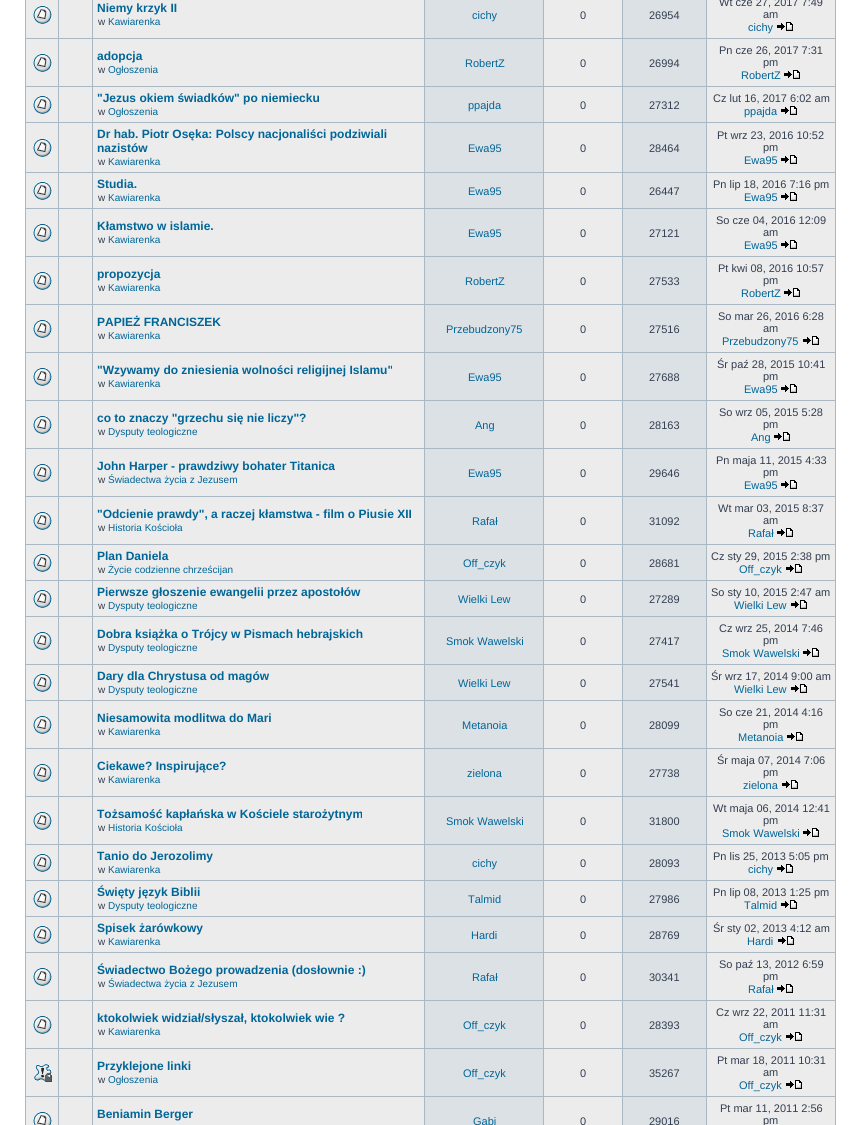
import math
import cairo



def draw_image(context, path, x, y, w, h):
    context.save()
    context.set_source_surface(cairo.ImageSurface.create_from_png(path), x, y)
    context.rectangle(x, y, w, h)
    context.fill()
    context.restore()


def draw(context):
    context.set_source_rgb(1, 1, 1)
    context.paint()
    context.set_source_rgb(169 / 255, 184 / 255, 194 / 255)
    context.rectangle(25, 0, 811, 1125)
    context.fill()
    context.set_source_rgb(236 / 255, 236 / 255, 236 / 255)
    context.rectangle(26, 0, 32, 38)
    context.fill()
    draw_image(context, "images/1.png", 33, 6, 19, 18)
    context.rectangle(59, 0, 33, 38)
    context.fill()
    context.rectangle(93, 0, 331, 38)
    context.fill()
    context.set_source_rgb(220 / 255, 225 / 255, 229 / 255)
    context.rectangle(425, 0, 118, 38)
    context.fill()
    context.set_source_rgb(236 / 255, 236 / 255, 236 / 255)
    context.rectangle(544, 0, 78, 38)
    context.fill()
    context.set_source_rgb(220 / 255, 225 / 255, 229 / 255)
    context.rectangle(623, 0, 83, 38)
    context.fill()
    context.set_source_rgb(236 / 255, 236 / 255, 236 / 255)
    context.rectangle(707, 0, 128, 38)
    context.fill()
    draw_image(context, "images/2.png", 777, 22, 16, 9)
    context.rectangle(26, 39, 32, 47)
    context.fill()
    draw_image(context, "images/1.png", 33, 54, 19, 18)
    context.rectangle(59, 39, 33, 47)
    context.fill()
    context.rectangle(93, 39, 331, 47)
    context.fill()
    context.set_source_rgb(220 / 255, 225 / 255, 229 / 255)
    context.rectangle(425, 39, 118, 47)
    context.fill()
    context.set_source_rgb(236 / 255, 236 / 255, 236 / 255)
    context.rectangle(544, 39, 78, 47)
    context.fill()
    context.set_source_rgb(220 / 255, 225 / 255, 229 / 255)
    context.rectangle(623, 39, 83, 47)
    context.fill()
    context.set_source_rgb(236 / 255, 236 / 255, 236 / 255)
    context.rectangle(707, 39, 128, 47)
    context.fill()
    draw_image(context, "images/2.png", 784, 70, 16, 9)
    context.rectangle(26, 87, 32, 35)
    context.fill()
    draw_image(context, "images/1.png", 33, 96, 19, 18)
    context.rectangle(59, 87, 33, 35)
    context.fill()
    context.rectangle(93, 87, 331, 35)
    context.fill()
    context.set_source_rgb(220 / 255, 225 / 255, 229 / 255)
    context.rectangle(425, 87, 118, 35)
    context.fill()
    context.set_source_rgb(236 / 255, 236 / 255, 236 / 255)
    context.rectangle(544, 87, 78, 35)
    context.fill()
    context.set_source_rgb(220 / 255, 225 / 255, 229 / 255)
    context.rectangle(623, 87, 83, 35)
    context.fill()
    context.set_source_rgb(236 / 255, 236 / 255, 236 / 255)
    context.rectangle(707, 87, 128, 35)
    context.fill()
    draw_image(context, "images/2.png", 781, 106, 16, 9)
    context.rectangle(26, 123, 32, 49)
    context.fill()
    draw_image(context, "images/1.png", 33, 139, 19, 18)
    context.rectangle(59, 123, 33, 49)
    context.fill()
    context.rectangle(93, 123, 331, 49)
    context.fill()
    context.set_source_rgb(220 / 255, 225 / 255, 229 / 255)
    context.rectangle(425, 123, 118, 49)
    context.fill()
    context.set_source_rgb(236 / 255, 236 / 255, 236 / 255)
    context.rectangle(544, 123, 78, 49)
    context.fill()
    context.set_source_rgb(220 / 255, 225 / 255, 229 / 255)
    context.rectangle(623, 123, 83, 49)
    context.fill()
    context.set_source_rgb(236 / 255, 236 / 255, 236 / 255)
    context.rectangle(707, 123, 128, 49)
    context.fill()
    draw_image(context, "images/2.png", 781, 155, 16, 9)
    context.rectangle(26, 173, 32, 35)
    context.fill()
    draw_image(context, "images/1.png", 33, 182, 19, 18)
    context.rectangle(59, 173, 33, 35)
    context.fill()
    context.rectangle(93, 173, 331, 35)
    context.fill()
    context.set_source_rgb(220 / 255, 225 / 255, 229 / 255)
    context.rectangle(425, 173, 118, 35)
    context.fill()
    context.set_source_rgb(236 / 255, 236 / 255, 236 / 255)
    context.rectangle(544, 173, 78, 35)
    context.fill()
    context.set_source_rgb(220 / 255, 225 / 255, 229 / 255)
    context.rectangle(623, 173, 83, 35)
    context.fill()
    context.set_source_rgb(236 / 255, 236 / 255, 236 / 255)
    context.rectangle(707, 173, 128, 35)
    context.fill()
    draw_image(context, "images/2.png", 781, 192, 16, 9)
    context.rectangle(26, 209, 32, 47)
    context.fill()
    draw_image(context, "images/1.png", 33, 224, 19, 18)
    context.rectangle(59, 209, 33, 47)
    context.fill()
    context.rectangle(93, 209, 331, 47)
    context.fill()
    context.set_source_rgb(220 / 255, 225 / 255, 229 / 255)
    context.rectangle(425, 209, 118, 47)
    context.fill()
    context.set_source_rgb(236 / 255, 236 / 255, 236 / 255)
    context.rectangle(544, 209, 78, 47)
    context.fill()
    context.set_source_rgb(220 / 255, 225 / 255, 229 / 255)
    context.rectangle(623, 209, 83, 47)
    context.fill()
    context.set_source_rgb(236 / 255, 236 / 255, 236 / 255)
    context.rectangle(707, 209, 128, 47)
    context.fill()
    draw_image(context, "images/2.png", 781, 240, 16, 9)
    context.rectangle(26, 257, 32, 47)
    context.fill()
    draw_image(context, "images/1.png", 33, 272, 19, 18)
    context.rectangle(59, 257, 33, 47)
    context.fill()
    context.rectangle(93, 257, 331, 47)
    context.fill()
    context.set_source_rgb(220 / 255, 225 / 255, 229 / 255)
    context.rectangle(425, 257, 118, 47)
    context.fill()
    context.set_source_rgb(236 / 255, 236 / 255, 236 / 255)
    context.rectangle(544, 257, 78, 47)
    context.fill()
    context.set_source_rgb(220 / 255, 225 / 255, 229 / 255)
    context.rectangle(623, 257, 83, 47)
    context.fill()
    context.set_source_rgb(236 / 255, 236 / 255, 236 / 255)
    context.rectangle(707, 257, 128, 47)
    context.fill()
    draw_image(context, "images/2.png", 784, 288, 16, 9)
    context.rectangle(26, 305, 32, 47)
    context.fill()
    draw_image(context, "images/1.png", 33, 320, 19, 18)
    context.rectangle(59, 305, 33, 47)
    context.fill()
    context.rectangle(93, 305, 331, 47)
    context.fill()
    context.set_source_rgb(220 / 255, 225 / 255, 229 / 255)
    context.rectangle(425, 305, 118, 47)
    context.fill()
    context.set_source_rgb(236 / 255, 236 / 255, 236 / 255)
    context.rectangle(544, 305, 78, 47)
    context.fill()
    context.set_source_rgb(220 / 255, 225 / 255, 229 / 255)
    context.rectangle(623, 305, 83, 47)
    context.fill()
    context.set_source_rgb(236 / 255, 236 / 255, 236 / 255)
    context.rectangle(707, 305, 128, 47)
    context.fill()
    draw_image(context, "images/2.png", 803, 336, 16, 9)
    context.rectangle(26, 353, 32, 47)
    context.fill()
    draw_image(context, "images/1.png", 33, 368, 19, 18)
    context.rectangle(59, 353, 33, 47)
    context.fill()
    context.rectangle(93, 353, 331, 47)
    context.fill()
    context.set_source_rgb(220 / 255, 225 / 255, 229 / 255)
    context.rectangle(425, 353, 118, 47)
    context.fill()
    context.set_source_rgb(236 / 255, 236 / 255, 236 / 255)
    context.rectangle(544, 353, 78, 47)
    context.fill()
    context.set_source_rgb(220 / 255, 225 / 255, 229 / 255)
    context.rectangle(623, 353, 83, 47)
    context.fill()
    context.set_source_rgb(236 / 255, 236 / 255, 236 / 255)
    context.rectangle(707, 353, 128, 47)
    context.fill()
    draw_image(context, "images/2.png", 781, 384, 16, 9)
    context.rectangle(26, 401, 32, 47)
    context.fill()
    draw_image(context, "images/1.png", 33, 416, 19, 18)
    context.rectangle(59, 401, 33, 47)
    context.fill()
    context.rectangle(93, 401, 331, 47)
    context.fill()
    context.set_source_rgb(220 / 255, 225 / 255, 229 / 255)
    context.rectangle(425, 401, 118, 47)
    context.fill()
    context.set_source_rgb(236 / 255, 236 / 255, 236 / 255)
    context.rectangle(544, 401, 78, 47)
    context.fill()
    context.set_source_rgb(220 / 255, 225 / 255, 229 / 255)
    context.rectangle(623, 401, 83, 47)
    context.fill()
    context.set_source_rgb(236 / 255, 236 / 255, 236 / 255)
    context.rectangle(707, 401, 128, 47)
    context.fill()
    draw_image(context, "images/2.png", 774, 432, 16, 9)
    context.rectangle(26, 449, 32, 47)
    context.fill()
    draw_image(context, "images/1.png", 33, 464, 19, 18)
    context.rectangle(59, 449, 33, 47)
    context.fill()
    context.rectangle(93, 449, 331, 47)
    context.fill()
    context.set_source_rgb(220 / 255, 225 / 255, 229 / 255)
    context.rectangle(425, 449, 118, 47)
    context.fill()
    context.set_source_rgb(236 / 255, 236 / 255, 236 / 255)
    context.rectangle(544, 449, 78, 47)
    context.fill()
    context.set_source_rgb(220 / 255, 225 / 255, 229 / 255)
    context.rectangle(623, 449, 83, 47)
    context.fill()
    context.set_source_rgb(236 / 255, 236 / 255, 236 / 255)
    context.rectangle(707, 449, 128, 47)
    context.fill()
    draw_image(context, "images/2.png", 781, 480, 16, 9)
    context.rectangle(26, 497, 32, 47)
    context.fill()
    draw_image(context, "images/1.png", 33, 512, 19, 18)
    context.rectangle(59, 497, 33, 47)
    context.fill()
    context.rectangle(93, 497, 331, 47)
    context.fill()
    context.set_source_rgb(220 / 255, 225 / 255, 229 / 255)
    context.rectangle(425, 497, 118, 47)
    context.fill()
    context.set_source_rgb(236 / 255, 236 / 255, 236 / 255)
    context.rectangle(544, 497, 78, 47)
    context.fill()
    context.set_source_rgb(220 / 255, 225 / 255, 229 / 255)
    context.rectangle(623, 497, 83, 47)
    context.fill()
    context.set_source_rgb(236 / 255, 236 / 255, 236 / 255)
    context.rectangle(707, 497, 128, 47)
    context.fill()
    draw_image(context, "images/2.png", 777, 528, 16, 9)
    context.rectangle(26, 545, 32, 35)
    context.fill()
    draw_image(context, "images/1.png", 33, 554, 19, 18)
    context.rectangle(59, 545, 33, 35)
    context.fill()
    context.rectangle(93, 545, 331, 35)
    context.fill()
    context.set_source_rgb(220 / 255, 225 / 255, 229 / 255)
    context.rectangle(425, 545, 118, 35)
    context.fill()
    context.set_source_rgb(236 / 255, 236 / 255, 236 / 255)
    context.rectangle(544, 545, 78, 35)
    context.fill()
    context.set_source_rgb(220 / 255, 225 / 255, 229 / 255)
    context.rectangle(623, 545, 83, 35)
    context.fill()
    context.set_source_rgb(236 / 255, 236 / 255, 236 / 255)
    context.rectangle(707, 545, 128, 35)
    context.fill()
    draw_image(context, "images/2.png", 786, 564, 16, 9)
    context.rectangle(26, 581, 32, 35)
    context.fill()
    draw_image(context, "images/1.png", 33, 590, 19, 18)
    context.rectangle(59, 581, 33, 35)
    context.fill()
    context.rectangle(93, 581, 331, 35)
    context.fill()
    context.set_source_rgb(220 / 255, 225 / 255, 229 / 255)
    context.rectangle(425, 581, 118, 35)
    context.fill()
    context.set_source_rgb(236 / 255, 236 / 255, 236 / 255)
    context.rectangle(544, 581, 78, 35)
    context.fill()
    context.set_source_rgb(220 / 255, 225 / 255, 229 / 255)
    context.rectangle(623, 581, 83, 35)
    context.fill()
    context.set_source_rgb(236 / 255, 236 / 255, 236 / 255)
    context.rectangle(707, 581, 128, 35)
    context.fill()
    draw_image(context, "images/2.png", 791, 600, 16, 9)
    context.rectangle(26, 617, 32, 47)
    context.fill()
    draw_image(context, "images/1.png", 33, 632, 19, 18)
    context.rectangle(59, 617, 33, 47)
    context.fill()
    context.rectangle(93, 617, 331, 47)
    context.fill()
    context.set_source_rgb(220 / 255, 225 / 255, 229 / 255)
    context.rectangle(425, 617, 118, 47)
    context.fill()
    context.set_source_rgb(236 / 255, 236 / 255, 236 / 255)
    context.rectangle(544, 617, 78, 47)
    context.fill()
    context.set_source_rgb(220 / 255, 225 / 255, 229 / 255)
    context.rectangle(623, 617, 83, 47)
    context.fill()
    context.set_source_rgb(236 / 255, 236 / 255, 236 / 255)
    context.rectangle(707, 617, 128, 47)
    context.fill()
    draw_image(context, "images/2.png", 803, 648, 16, 9)
    context.rectangle(26, 665, 32, 35)
    context.fill()
    draw_image(context, "images/1.png", 33, 674, 19, 18)
    context.rectangle(59, 665, 33, 35)
    context.fill()
    context.rectangle(93, 665, 331, 35)
    context.fill()
    context.set_source_rgb(220 / 255, 225 / 255, 229 / 255)
    context.rectangle(425, 665, 118, 35)
    context.fill()
    context.set_source_rgb(236 / 255, 236 / 255, 236 / 255)
    context.rectangle(544, 665, 78, 35)
    context.fill()
    context.set_source_rgb(220 / 255, 225 / 255, 229 / 255)
    context.rectangle(623, 665, 83, 35)
    context.fill()
    context.set_source_rgb(236 / 255, 236 / 255, 236 / 255)
    context.rectangle(707, 665, 128, 35)
    context.fill()
    draw_image(context, "images/2.png", 791, 684, 16, 9)
    context.rectangle(26, 701, 32, 47)
    context.fill()
    draw_image(context, "images/1.png", 33, 716, 19, 18)
    context.rectangle(59, 701, 33, 47)
    context.fill()
    context.rectangle(93, 701, 331, 47)
    context.fill()
    context.set_source_rgb(220 / 255, 225 / 255, 229 / 255)
    context.rectangle(425, 701, 118, 47)
    context.fill()
    context.set_source_rgb(236 / 255, 236 / 255, 236 / 255)
    context.rectangle(544, 701, 78, 47)
    context.fill()
    context.set_source_rgb(220 / 255, 225 / 255, 229 / 255)
    context.rectangle(623, 701, 83, 47)
    context.fill()
    context.set_source_rgb(236 / 255, 236 / 255, 236 / 255)
    context.rectangle(707, 701, 128, 47)
    context.fill()
    draw_image(context, "images/2.png", 787, 732, 16, 9)
    context.rectangle(26, 749, 32, 47)
    context.fill()
    draw_image(context, "images/1.png", 33, 764, 19, 18)
    context.rectangle(59, 749, 33, 47)
    context.fill()
    context.rectangle(93, 749, 331, 47)
    context.fill()
    context.set_source_rgb(220 / 255, 225 / 255, 229 / 255)
    context.rectangle(425, 749, 118, 47)
    context.fill()
    context.set_source_rgb(236 / 255, 236 / 255, 236 / 255)
    context.rectangle(544, 749, 78, 47)
    context.fill()
    context.set_source_rgb(220 / 255, 225 / 255, 229 / 255)
    context.rectangle(623, 749, 83, 47)
    context.fill()
    context.set_source_rgb(236 / 255, 236 / 255, 236 / 255)
    context.rectangle(707, 749, 128, 47)
    context.fill()
    draw_image(context, "images/2.png", 782, 780, 16, 9)
    context.rectangle(26, 797, 32, 47)
    context.fill()
    draw_image(context, "images/1.png", 33, 812, 19, 18)
    context.rectangle(59, 797, 33, 47)
    context.fill()
    context.rectangle(93, 797, 331, 47)
    context.fill()
    context.set_source_rgb(220 / 255, 225 / 255, 229 / 255)
    context.rectangle(425, 797, 118, 47)
    context.fill()
    context.set_source_rgb(236 / 255, 236 / 255, 236 / 255)
    context.rectangle(544, 797, 78, 47)
    context.fill()
    context.set_source_rgb(220 / 255, 225 / 255, 229 / 255)
    context.rectangle(623, 797, 83, 47)
    context.fill()
    context.set_source_rgb(236 / 255, 236 / 255, 236 / 255)
    context.rectangle(707, 797, 128, 47)
    context.fill()
    draw_image(context, "images/2.png", 803, 828, 16, 9)
    context.rectangle(26, 845, 32, 35)
    context.fill()
    draw_image(context, "images/1.png", 33, 854, 19, 18)
    context.rectangle(59, 845, 33, 35)
    context.fill()
    context.rectangle(93, 845, 331, 35)
    context.fill()
    context.set_source_rgb(220 / 255, 225 / 255, 229 / 255)
    context.rectangle(425, 845, 118, 35)
    context.fill()
    context.set_source_rgb(236 / 255, 236 / 255, 236 / 255)
    context.rectangle(544, 845, 78, 35)
    context.fill()
    context.set_source_rgb(220 / 255, 225 / 255, 229 / 255)
    context.rectangle(623, 845, 83, 35)
    context.fill()
    context.set_source_rgb(236 / 255, 236 / 255, 236 / 255)
    context.rectangle(707, 845, 128, 35)
    context.fill()
    draw_image(context, "images/2.png", 777, 864, 16, 9)
    context.rectangle(26, 881, 32, 35)
    context.fill()
    draw_image(context, "images/1.png", 33, 890, 19, 18)
    context.rectangle(59, 881, 33, 35)
    context.fill()
    context.rectangle(93, 881, 331, 35)
    context.fill()
    context.set_source_rgb(220 / 255, 225 / 255, 229 / 255)
    context.rectangle(425, 881, 118, 35)
    context.fill()
    context.set_source_rgb(236 / 255, 236 / 255, 236 / 255)
    context.rectangle(544, 881, 78, 35)
    context.fill()
    context.set_source_rgb(220 / 255, 225 / 255, 229 / 255)
    context.rectangle(623, 881, 83, 35)
    context.fill()
    context.set_source_rgb(236 / 255, 236 / 255, 236 / 255)
    context.rectangle(707, 881, 128, 35)
    context.fill()
    draw_image(context, "images/2.png", 781, 900, 16, 9)
    context.rectangle(26, 917, 32, 35)
    context.fill()
    draw_image(context, "images/1.png", 33, 926, 19, 18)
    context.rectangle(59, 917, 33, 35)
    context.fill()
    context.rectangle(93, 917, 331, 35)
    context.fill()
    context.set_source_rgb(220 / 255, 225 / 255, 229 / 255)
    context.rectangle(425, 917, 118, 35)
    context.fill()
    context.set_source_rgb(236 / 255, 236 / 255, 236 / 255)
    context.rectangle(544, 917, 78, 35)
    context.fill()
    context.set_source_rgb(220 / 255, 225 / 255, 229 / 255)
    context.rectangle(623, 917, 83, 35)
    context.fill()
    context.set_source_rgb(236 / 255, 236 / 255, 236 / 255)
    context.rectangle(707, 917, 128, 35)
    context.fill()
    draw_image(context, "images/2.png", 778, 936, 16, 9)
    context.rectangle(26, 953, 32, 47)
    context.fill()
    draw_image(context, "images/1.png", 33, 968, 19, 18)
    context.rectangle(59, 953, 33, 47)
    context.fill()
    context.rectangle(93, 953, 331, 47)
    context.fill()
    context.set_source_rgb(220 / 255, 225 / 255, 229 / 255)
    context.rectangle(425, 953, 118, 47)
    context.fill()
    context.set_source_rgb(236 / 255, 236 / 255, 236 / 255)
    context.rectangle(544, 953, 78, 47)
    context.fill()
    context.set_source_rgb(220 / 255, 225 / 255, 229 / 255)
    context.rectangle(623, 953, 83, 47)
    context.fill()
    context.set_source_rgb(236 / 255, 236 / 255, 236 / 255)
    context.rectangle(707, 953, 128, 47)
    context.fill()
    draw_image(context, "images/2.png", 777, 984, 16, 9)
    context.rectangle(26, 1001, 32, 47)
    context.fill()
    draw_image(context, "images/1.png", 33, 1016, 19, 18)
    context.rectangle(59, 1001, 33, 47)
    context.fill()
    context.rectangle(93, 1001, 331, 47)
    context.fill()
    context.set_source_rgb(220 / 255, 225 / 255, 229 / 255)
    context.rectangle(425, 1001, 118, 47)
    context.fill()
    context.set_source_rgb(236 / 255, 236 / 255, 236 / 255)
    context.rectangle(544, 1001, 78, 47)
    context.fill()
    context.set_source_rgb(220 / 255, 225 / 255, 229 / 255)
    context.rectangle(623, 1001, 83, 47)
    context.fill()
    context.set_source_rgb(236 / 255, 236 / 255, 236 / 255)
    context.rectangle(707, 1001, 128, 47)
    context.fill()
    draw_image(context, "images/2.png", 786, 1032, 16, 9)
    context.rectangle(26, 1049, 32, 47)
    context.fill()
    draw_image(context, "images/3.png", 34, 1064, 18, 18)
    context.rectangle(59, 1049, 33, 47)
    context.fill()
    context.rectangle(93, 1049, 331, 47)
    context.fill()
    context.set_source_rgb(220 / 255, 225 / 255, 229 / 255)
    context.rectangle(425, 1049, 118, 47)
    context.fill()
    context.set_source_rgb(236 / 255, 236 / 255, 236 / 255)
    context.rectangle(544, 1049, 78, 47)
    context.fill()
    context.set_source_rgb(220 / 255, 225 / 255, 229 / 255)
    context.rectangle(623, 1049, 83, 47)
    context.fill()
    context.set_source_rgb(236 / 255, 236 / 255, 236 / 255)
    context.rectangle(707, 1049, 128, 47)
    context.fill()
    draw_image(context, "images/2.png", 786, 1080, 16, 9)
    context.rectangle(26, 1097, 32, 28)
    context.fill()
    draw_image(context, "images/4.png", 33, 1112, 19, 13)
    context.rectangle(59, 1097, 33, 28)
    context.fill()
    context.rectangle(93, 1097, 331, 28)
    context.fill()
    context.set_source_rgb(220 / 255, 225 / 255, 229 / 255)
    context.rectangle(425, 1097, 118, 28)
    context.fill()
    context.set_source_rgb(236 / 255, 236 / 255, 236 / 255)
    context.rectangle(544, 1097, 78, 28)
    context.fill()
    context.set_source_rgb(220 / 255, 225 / 255, 229 / 255)
    context.rectangle(623, 1097, 83, 28)
    context.fill()
    context.set_source_rgb(236 / 255, 236 / 255, 236 / 255)
    context.rectangle(707, 1097, 128, 28)
    context.fill()
    context.select_font_face("Liberation Sans", cairo.FontSlant.NORMAL, cairo.FontWeight.BOLD)
    context.set_font_size(12)
    context.set_source_rgb(0, 101 / 255, 151 / 255)
    context.move_to(97, 12)
    context.show_text("Niemy krzyk II")
    context.select_font_face("Liberation Sans")
    context.set_font_size(10)
    context.set_source_rgb(50 / 255, 61 / 255, 79 / 255)
    context.move_to(98, 25)
    context.show_text("w")
    context.set_source_rgb(0, 101 / 255, 151 / 255)
    context.move_to(108, 25)
    context.show_text("Kawiarenka")
    context.set_font_size(11)
    context.move_to(472, 19)
    context.show_text("cichy")
    context.set_source_rgb(50 / 255, 61 / 255, 79 / 255)
    context.move_to(580, 19)
    context.show_text("0")
    context.move_to(649, 19)
    context.show_text("26954")
    context.move_to(719, 6)
    context.show_text("Wt cze 27, 2017 7:49")
    context.move_to(763, 18)
    context.show_text("am")
    context.set_source_rgb(0, 101 / 255, 151 / 255)
    context.move_to(748, 31)
    context.show_text("cichy")
    context.select_font_face("Liberation Sans", cairo.FontSlant.NORMAL, cairo.FontWeight.BOLD)
    context.set_font_size(12)
    context.move_to(97, 60)
    context.show_text("adopcja")
    context.select_font_face("Liberation Sans")
    context.set_font_size(10)
    context.set_source_rgb(50 / 255, 61 / 255, 79 / 255)
    context.move_to(98, 73)
    context.show_text("w")
    context.set_source_rgb(0, 101 / 255, 151 / 255)
    context.move_to(108, 73)
    context.show_text("Ogłoszenia")
    context.set_font_size(11)
    context.move_to(465, 67)
    context.show_text("RobertZ")
    context.set_source_rgb(50 / 255, 61 / 255, 79 / 255)
    context.move_to(580, 67)
    context.show_text("0")
    context.move_to(649, 67)
    context.show_text("26994")
    context.move_to(719, 54)
    context.show_text("Pn cze 26, 2017 7:31")
    context.move_to(763, 66)
    context.show_text("pm")
    context.set_source_rgb(0, 101 / 255, 151 / 255)
    context.move_to(741, 79)
    context.show_text("RobertZ")
    context.select_font_face("Liberation Sans", cairo.FontSlant.NORMAL, cairo.FontWeight.BOLD)
    context.set_font_size(12)
    context.move_to(97, 102)
    context.show_text("\"Jezus okiem świadków\" po niemiecku")
    context.select_font_face("Liberation Sans")
    context.set_font_size(10)
    context.set_source_rgb(50 / 255, 61 / 255, 79 / 255)
    context.move_to(98, 115)
    context.show_text("w")
    context.set_source_rgb(0, 101 / 255, 151 / 255)
    context.move_to(108, 115)
    context.show_text("Ogłoszenia")
    context.set_font_size(11)
    context.move_to(468, 109)
    context.show_text("ppajda")
    context.set_source_rgb(50 / 255, 61 / 255, 79 / 255)
    context.move_to(580, 109)
    context.show_text("0")
    context.move_to(649, 109)
    context.show_text("27312")
    context.move_to(713, 102)
    context.show_text("Cz lut 16, 2017 6:02 am")
    context.set_source_rgb(0, 101 / 255, 151 / 255)
    context.move_to(744, 115)
    context.show_text("ppajda")
    context.select_font_face("Liberation Sans", cairo.FontSlant.NORMAL, cairo.FontWeight.BOLD)
    context.set_font_size(12)
    context.move_to(97, 138)
    context.show_text("Dr hab. Piotr Osęka: Polscy nacjonaliści podziwiali")
    context.move_to(97, 152)
    context.show_text("nazistów")
    context.select_font_face("Liberation Sans")
    context.set_font_size(10)
    context.set_source_rgb(50 / 255, 61 / 255, 79 / 255)
    context.move_to(98, 165)
    context.show_text("w")
    context.set_source_rgb(0, 101 / 255, 151 / 255)
    context.move_to(108, 165)
    context.show_text("Kawiarenka")
    context.set_font_size(11)
    context.move_to(468, 152)
    context.show_text("Ewa95")
    context.set_source_rgb(50 / 255, 61 / 255, 79 / 255)
    context.move_to(580, 152)
    context.show_text("0")
    context.move_to(649, 152)
    context.show_text("28464")
    context.move_to(717, 139)
    context.show_text("Pt wrz 23, 2016 10:52")
    context.move_to(763, 151)
    context.show_text("pm")
    context.set_source_rgb(0, 101 / 255, 151 / 255)
    context.move_to(744, 164)
    context.show_text("Ewa95")
    context.select_font_face("Liberation Sans", cairo.FontSlant.NORMAL, cairo.FontWeight.BOLD)
    context.set_font_size(12)
    context.move_to(97, 188)
    context.show_text("Studia.")
    context.select_font_face("Liberation Sans")
    context.set_font_size(10)
    context.set_source_rgb(50 / 255, 61 / 255, 79 / 255)
    context.move_to(98, 201)
    context.show_text("w")
    context.set_source_rgb(0, 101 / 255, 151 / 255)
    context.move_to(108, 201)
    context.show_text("Kawiarenka")
    context.set_font_size(11)
    context.move_to(468, 195)
    context.show_text("Ewa95")
    context.set_source_rgb(50 / 255, 61 / 255, 79 / 255)
    context.move_to(580, 195)
    context.show_text("0")
    context.move_to(649, 195)
    context.show_text("26447")
    context.move_to(713, 188)
    context.show_text("Pn lip 18, 2016 7:16 pm")
    context.set_source_rgb(0, 101 / 255, 151 / 255)
    context.move_to(744, 201)
    context.show_text("Ewa95")
    context.select_font_face("Liberation Sans", cairo.FontSlant.NORMAL, cairo.FontWeight.BOLD)
    context.set_font_size(12)
    context.move_to(97, 230)
    context.show_text("Kłamstwo w islamie.")
    context.select_font_face("Liberation Sans")
    context.set_font_size(10)
    context.set_source_rgb(50 / 255, 61 / 255, 79 / 255)
    context.move_to(98, 243)
    context.show_text("w")
    context.set_source_rgb(0, 101 / 255, 151 / 255)
    context.move_to(108, 243)
    context.show_text("Kawiarenka")
    context.set_font_size(11)
    context.move_to(468, 237)
    context.show_text("Ewa95")
    context.set_source_rgb(50 / 255, 61 / 255, 79 / 255)
    context.move_to(580, 237)
    context.show_text("0")
    context.move_to(649, 237)
    context.show_text("27121")
    context.move_to(716, 224)
    context.show_text("So cze 04, 2016 12:09")
    context.move_to(763, 236)
    context.show_text("am")
    context.set_source_rgb(0, 101 / 255, 151 / 255)
    context.move_to(744, 249)
    context.show_text("Ewa95")
    context.select_font_face("Liberation Sans", cairo.FontSlant.NORMAL, cairo.FontWeight.BOLD)
    context.set_font_size(12)
    context.move_to(97, 278)
    context.show_text("propozycja")
    context.select_font_face("Liberation Sans")
    context.set_font_size(10)
    context.set_source_rgb(50 / 255, 61 / 255, 79 / 255)
    context.move_to(98, 291)
    context.show_text("w")
    context.set_source_rgb(0, 101 / 255, 151 / 255)
    context.move_to(108, 291)
    context.show_text("Kawiarenka")
    context.set_font_size(11)
    context.move_to(465, 285)
    context.show_text("RobertZ")
    context.set_source_rgb(50 / 255, 61 / 255, 79 / 255)
    context.move_to(580, 285)
    context.show_text("0")
    context.move_to(649, 285)
    context.show_text("27533")
    context.move_to(718, 272)
    context.show_text("Pt kwi 08, 2016 10:57")
    context.move_to(763, 284)
    context.show_text("pm")
    context.set_source_rgb(0, 101 / 255, 151 / 255)
    context.move_to(741, 297)
    context.show_text("RobertZ")
    context.select_font_face("Liberation Sans", cairo.FontSlant.NORMAL, cairo.FontWeight.BOLD)
    context.set_font_size(12)
    context.move_to(97, 326)
    context.show_text("PAPIEŻ FRANCISZEK")
    context.select_font_face("Liberation Sans")
    context.set_font_size(10)
    context.set_source_rgb(50 / 255, 61 / 255, 79 / 255)
    context.move_to(98, 339)
    context.show_text("w")
    context.set_source_rgb(0, 101 / 255, 151 / 255)
    context.move_to(108, 339)
    context.show_text("Kawiarenka")
    context.set_font_size(11)
    context.move_to(446, 333)
    context.show_text("Przebudzony75")
    context.set_source_rgb(50 / 255, 61 / 255, 79 / 255)
    context.move_to(580, 333)
    context.show_text("0")
    context.move_to(649, 333)
    context.show_text("27516")
    context.move_to(718, 320)
    context.show_text("So mar 26, 2016 6:28")
    context.move_to(763, 332)
    context.show_text("am")
    context.set_source_rgb(0, 101 / 255, 151 / 255)
    context.move_to(722, 345)
    context.show_text("Przebudzony75")
    context.select_font_face("Liberation Sans", cairo.FontSlant.NORMAL, cairo.FontWeight.BOLD)
    context.set_font_size(12)
    context.move_to(97, 374)
    context.show_text("\"Wzywamy do zniesienia wolności religijnej Islamu\"")
    context.select_font_face("Liberation Sans")
    context.set_font_size(10)
    context.set_source_rgb(50 / 255, 61 / 255, 79 / 255)
    context.move_to(98, 387)
    context.show_text("w")
    context.set_source_rgb(0, 101 / 255, 151 / 255)
    context.move_to(108, 387)
    context.show_text("Kawiarenka")
    context.set_font_size(11)
    context.move_to(468, 381)
    context.show_text("Ewa95")
    context.set_source_rgb(50 / 255, 61 / 255, 79 / 255)
    context.move_to(580, 381)
    context.show_text("0")
    context.move_to(649, 381)
    context.show_text("27688")
    context.move_to(717, 368)
    context.show_text("Śr paź 28, 2015 10:41")
    context.move_to(763, 380)
    context.show_text("pm")
    context.set_source_rgb(0, 101 / 255, 151 / 255)
    context.move_to(744, 393)
    context.show_text("Ewa95")
    context.select_font_face("Liberation Sans", cairo.FontSlant.NORMAL, cairo.FontWeight.BOLD)
    context.set_font_size(12)
    context.move_to(97, 422)
    context.show_text("co to znaczy \"grzechu się nie liczy\"?")
    context.select_font_face("Liberation Sans")
    context.set_font_size(10)
    context.set_source_rgb(50 / 255, 61 / 255, 79 / 255)
    context.move_to(98, 435)
    context.show_text("w")
    context.set_source_rgb(0, 101 / 255, 151 / 255)
    context.move_to(108, 435)
    context.show_text("Dysputy teologiczne")
    context.set_font_size(11)
    context.move_to(475, 429)
    context.show_text("Ang")
    context.set_source_rgb(50 / 255, 61 / 255, 79 / 255)
    context.move_to(580, 429)
    context.show_text("0")
    context.move_to(649, 429)
    context.show_text("28163")
    context.move_to(719, 416)
    context.show_text("So wrz 05, 2015 5:28")
    context.move_to(763, 428)
    context.show_text("pm")
    context.set_source_rgb(0, 101 / 255, 151 / 255)
    context.move_to(751, 441)
    context.show_text("Ang")
    context.select_font_face("Liberation Sans", cairo.FontSlant.NORMAL, cairo.FontWeight.BOLD)
    context.set_font_size(12)
    context.move_to(97, 470)
    context.show_text("John Harper - prawdziwy bohater Titanica")
    context.select_font_face("Liberation Sans")
    context.set_font_size(10)
    context.set_source_rgb(50 / 255, 61 / 255, 79 / 255)
    context.move_to(98, 483)
    context.show_text("w")
    context.set_source_rgb(0, 101 / 255, 151 / 255)
    context.move_to(108, 483)
    context.show_text("Świadectwa życia z Jezusem")
    context.set_font_size(11)
    context.move_to(468, 477)
    context.show_text("Ewa95")
    context.set_source_rgb(50 / 255, 61 / 255, 79 / 255)
    context.move_to(580, 477)
    context.show_text("0")
    context.move_to(649, 477)
    context.show_text("29646")
    context.move_to(716, 464)
    context.show_text("Pn maja 11, 2015 4:33")
    context.move_to(763, 476)
    context.show_text("pm")
    context.set_source_rgb(0, 101 / 255, 151 / 255)
    context.move_to(744, 489)
    context.show_text("Ewa95")
    context.select_font_face("Liberation Sans", cairo.FontSlant.NORMAL, cairo.FontWeight.BOLD)
    context.set_font_size(12)
    context.move_to(97, 518)
    context.show_text("\"Odcienie prawdy\", a raczej kłamstwa - film o Piusie XII")
    context.select_font_face("Liberation Sans")
    context.set_font_size(10)
    context.set_source_rgb(50 / 255, 61 / 255, 79 / 255)
    context.move_to(98, 531)
    context.show_text("w")
    context.set_source_rgb(0, 101 / 255, 151 / 255)
    context.move_to(108, 531)
    context.show_text("Historia Kościoła")
    context.set_font_size(11)
    context.move_to(472, 525)
    context.show_text("Rafał")
    context.set_source_rgb(50 / 255, 61 / 255, 79 / 255)
    context.move_to(580, 525)
    context.show_text("0")
    context.move_to(649, 525)
    context.show_text("31092")
    context.move_to(718, 512)
    context.show_text("Wt mar 03, 2015 8:37")
    context.move_to(763, 524)
    context.show_text("am")
    context.set_source_rgb(0, 101 / 255, 151 / 255)
    context.move_to(748, 537)
    context.show_text("Rafał")
    context.select_font_face("Liberation Sans", cairo.FontSlant.NORMAL, cairo.FontWeight.BOLD)
    context.set_font_size(12)
    context.move_to(97, 560)
    context.show_text("Plan Daniela")
    context.select_font_face("Liberation Sans")
    context.set_font_size(10)
    context.set_source_rgb(50 / 255, 61 / 255, 79 / 255)
    context.move_to(98, 573)
    context.show_text("w")
    context.set_source_rgb(0, 101 / 255, 151 / 255)
    context.move_to(108, 573)
    context.show_text("Życie codzienne chrześcijan")
    context.set_font_size(11)
    context.move_to(463, 567)
    context.show_text("Off_czyk")
    context.set_source_rgb(50 / 255, 61 / 255, 79 / 255)
    context.move_to(580, 567)
    context.show_text("0")
    context.move_to(649, 567)
    context.show_text("28681")
    context.move_to(711, 560)
    context.show_text("Cz sty 29, 2015 2:38 pm")
    context.set_source_rgb(0, 101 / 255, 151 / 255)
    context.move_to(739, 573)
    context.show_text("Off_czyk")
    context.select_font_face("Liberation Sans", cairo.FontSlant.NORMAL, cairo.FontWeight.BOLD)
    context.set_font_size(12)
    context.move_to(97, 596)
    context.show_text("Pierwsze głoszenie ewangelii przez apostołów")
    context.select_font_face("Liberation Sans")
    context.set_font_size(10)
    context.set_source_rgb(50 / 255, 61 / 255, 79 / 255)
    context.move_to(98, 609)
    context.show_text("w")
    context.set_source_rgb(0, 101 / 255, 151 / 255)
    context.move_to(108, 609)
    context.show_text("Dysputy teologiczne")
    context.set_font_size(11)
    context.move_to(458, 603)
    context.show_text("Wielki Lew")
    context.set_source_rgb(50 / 255, 61 / 255, 79 / 255)
    context.move_to(580, 603)
    context.show_text("0")
    context.move_to(649, 603)
    context.show_text("27289")
    context.move_to(711, 596)
    context.show_text("So sty 10, 2015 2:47 am")
    context.set_source_rgb(0, 101 / 255, 151 / 255)
    context.move_to(734, 609)
    context.show_text("Wielki Lew")
    context.select_font_face("Liberation Sans", cairo.FontSlant.NORMAL, cairo.FontWeight.BOLD)
    context.set_font_size(12)
    context.move_to(97, 638)
    context.show_text("Dobra książka o Trójcy w Pismach hebrajskich")
    context.select_font_face("Liberation Sans")
    context.set_font_size(10)
    context.set_source_rgb(50 / 255, 61 / 255, 79 / 255)
    context.move_to(98, 651)
    context.show_text("w")
    context.set_source_rgb(0, 101 / 255, 151 / 255)
    context.move_to(108, 651)
    context.show_text("Dysputy teologiczne")
    context.set_font_size(11)
    context.move_to(446, 645)
    context.show_text("Smok Wawelski")
    context.set_source_rgb(50 / 255, 61 / 255, 79 / 255)
    context.move_to(580, 645)
    context.show_text("0")
    context.move_to(649, 645)
    context.show_text("27417")
    context.move_to(719, 632)
    context.show_text("Cz wrz 25, 2014 7:46")
    context.move_to(763, 644)
    context.show_text("pm")
    context.set_source_rgb(0, 101 / 255, 151 / 255)
    context.move_to(722, 657)
    context.show_text("Smok Wawelski")
    context.select_font_face("Liberation Sans", cairo.FontSlant.NORMAL, cairo.FontWeight.BOLD)
    context.set_font_size(12)
    context.move_to(97, 680)
    context.show_text("Dary dla Chrystusa od magów")
    context.select_font_face("Liberation Sans")
    context.set_font_size(10)
    context.set_source_rgb(50 / 255, 61 / 255, 79 / 255)
    context.move_to(98, 693)
    context.show_text("w")
    context.set_source_rgb(0, 101 / 255, 151 / 255)
    context.move_to(108, 693)
    context.show_text("Dysputy teologiczne")
    context.set_font_size(11)
    context.move_to(458, 687)
    context.show_text("Wielki Lew")
    context.set_source_rgb(50 / 255, 61 / 255, 79 / 255)
    context.move_to(580, 687)
    context.show_text("0")
    context.move_to(649, 687)
    context.show_text("27541")
    context.move_to(711, 680)
    context.show_text("Śr wrz 17, 2014 9:00 am")
    context.set_source_rgb(0, 101 / 255, 151 / 255)
    context.move_to(734, 693)
    context.show_text("Wielki Lew")
    context.select_font_face("Liberation Sans", cairo.FontSlant.NORMAL, cairo.FontWeight.BOLD)
    context.set_font_size(12)
    context.move_to(97, 722)
    context.show_text("Niesamowita modlitwa do Mari")
    context.select_font_face("Liberation Sans")
    context.set_font_size(10)
    context.set_source_rgb(50 / 255, 61 / 255, 79 / 255)
    context.move_to(98, 735)
    context.show_text("w")
    context.set_source_rgb(0, 101 / 255, 151 / 255)
    context.move_to(108, 735)
    context.show_text("Kawiarenka")
    context.set_font_size(11)
    context.move_to(462, 729)
    context.show_text("Metanoia")
    context.set_source_rgb(50 / 255, 61 / 255, 79 / 255)
    context.move_to(580, 729)
    context.show_text("0")
    context.move_to(649, 729)
    context.show_text("28099")
    context.move_to(719, 716)
    context.show_text("So cze 21, 2014 4:16")
    context.move_to(763, 728)
    context.show_text("pm")
    context.set_source_rgb(0, 101 / 255, 151 / 255)
    context.move_to(738, 741)
    context.show_text("Metanoia")
    context.select_font_face("Liberation Sans", cairo.FontSlant.NORMAL, cairo.FontWeight.BOLD)
    context.set_font_size(12)
    context.move_to(97, 770)
    context.show_text("Ciekawe? Inspirujące?")
    context.select_font_face("Liberation Sans")
    context.set_font_size(10)
    context.set_source_rgb(50 / 255, 61 / 255, 79 / 255)
    context.move_to(98, 783)
    context.show_text("w")
    context.set_source_rgb(0, 101 / 255, 151 / 255)
    context.move_to(108, 783)
    context.show_text("Kawiarenka")
    context.set_font_size(11)
    context.move_to(467, 777)
    context.show_text("zielona")
    context.set_source_rgb(50 / 255, 61 / 255, 79 / 255)
    context.move_to(580, 777)
    context.show_text("0")
    context.move_to(649, 777)
    context.show_text("27738")
    context.move_to(717, 764)
    context.show_text("Śr maja 07, 2014 7:06")
    context.move_to(763, 776)
    context.show_text("pm")
    context.set_source_rgb(0, 101 / 255, 151 / 255)
    context.move_to(743, 789)
    context.show_text("zielona")
    context.select_font_face("Liberation Sans", cairo.FontSlant.NORMAL, cairo.FontWeight.BOLD)
    context.set_font_size(12)
    context.move_to(97, 818)
    context.show_text("Tożsamość kapłańska w Kościele starożytnym")
    context.select_font_face("Liberation Sans")
    context.set_font_size(10)
    context.set_source_rgb(50 / 255, 61 / 255, 79 / 255)
    context.move_to(98, 831)
    context.show_text("w")
    context.set_source_rgb(0, 101 / 255, 151 / 255)
    context.move_to(108, 831)
    context.show_text("Historia Kościoła")
    context.set_font_size(11)
    context.move_to(446, 825)
    context.show_text("Smok Wawelski")
    context.set_source_rgb(50 / 255, 61 / 255, 79 / 255)
    context.move_to(580, 825)
    context.show_text("0")
    context.move_to(649, 825)
    context.show_text("31800")
    context.move_to(713, 812)
    context.show_text("Wt maja 06, 2014 12:41")
    context.move_to(763, 824)
    context.show_text("pm")
    context.set_source_rgb(0, 101 / 255, 151 / 255)
    context.move_to(722, 837)
    context.show_text("Smok Wawelski")
    context.select_font_face("Liberation Sans", cairo.FontSlant.NORMAL, cairo.FontWeight.BOLD)
    context.set_font_size(12)
    context.move_to(97, 860)
    context.show_text("Tanio do Jerozolimy")
    context.select_font_face("Liberation Sans")
    context.set_font_size(10)
    context.set_source_rgb(50 / 255, 61 / 255, 79 / 255)
    context.move_to(98, 873)
    context.show_text("w")
    context.set_source_rgb(0, 101 / 255, 151 / 255)
    context.move_to(108, 873)
    context.show_text("Kawiarenka")
    context.set_font_size(11)
    context.move_to(472, 867)
    context.show_text("cichy")
    context.set_source_rgb(50 / 255, 61 / 255, 79 / 255)
    context.move_to(580, 867)
    context.show_text("0")
    context.move_to(649, 867)
    context.show_text("28093")
    context.move_to(713, 860)
    context.show_text("Pn lis 25, 2013 5:05 pm")
    context.set_source_rgb(0, 101 / 255, 151 / 255)
    context.move_to(748, 873)
    context.show_text("cichy")
    context.select_font_face("Liberation Sans", cairo.FontSlant.NORMAL, cairo.FontWeight.BOLD)
    context.set_font_size(12)
    context.move_to(97, 896)
    context.show_text("Święty język Biblii")
    context.select_font_face("Liberation Sans")
    context.set_font_size(10)
    context.set_source_rgb(50 / 255, 61 / 255, 79 / 255)
    context.move_to(98, 909)
    context.show_text("w")
    context.set_source_rgb(0, 101 / 255, 151 / 255)
    context.move_to(108, 909)
    context.show_text("Dysputy teologiczne")
    context.set_font_size(11)
    context.move_to(468, 903)
    context.show_text("Talmid")
    context.set_source_rgb(50 / 255, 61 / 255, 79 / 255)
    context.move_to(580, 903)
    context.show_text("0")
    context.move_to(649, 903)
    context.show_text("27986")
    context.move_to(713, 896)
    context.show_text("Pn lip 08, 2013 1:25 pm")
    context.set_source_rgb(0, 101 / 255, 151 / 255)
    context.move_to(744, 909)
    context.show_text("Talmid")
    context.select_font_face("Liberation Sans", cairo.FontSlant.NORMAL, cairo.FontWeight.BOLD)
    context.set_font_size(12)
    context.move_to(97, 932)
    context.show_text("Spisek żarówkowy")
    context.select_font_face("Liberation Sans")
    context.set_font_size(10)
    context.set_source_rgb(50 / 255, 61 / 255, 79 / 255)
    context.move_to(98, 945)
    context.show_text("w")
    context.set_source_rgb(0, 101 / 255, 151 / 255)
    context.move_to(108, 945)
    context.show_text("Kawiarenka")
    context.set_font_size(11)
    context.move_to(471, 939)
    context.show_text("Hardi")
    context.set_source_rgb(50 / 255, 61 / 255, 79 / 255)
    context.move_to(580, 939)
    context.show_text("0")
    context.move_to(649, 939)
    context.show_text("28769")
    context.move_to(713, 932)
    context.show_text("Śr sty 02, 2013 4:12 am")
    context.set_source_rgb(0, 101 / 255, 151 / 255)
    context.move_to(747, 945)
    context.show_text("Hardi")
    context.select_font_face("Liberation Sans", cairo.FontSlant.NORMAL, cairo.FontWeight.BOLD)
    context.set_font_size(12)
    context.move_to(97, 974)
    context.show_text("Świadectwo Bożego prowadzenia (dosłownie :)")
    context.select_font_face("Liberation Sans")
    context.set_font_size(10)
    context.set_source_rgb(50 / 255, 61 / 255, 79 / 255)
    context.move_to(98, 987)
    context.show_text("w")
    context.set_source_rgb(0, 101 / 255, 151 / 255)
    context.move_to(108, 987)
    context.show_text("Świadectwa życia z Jezusem")
    context.set_font_size(11)
    context.move_to(472, 981)
    context.show_text("Rafał")
    context.set_source_rgb(50 / 255, 61 / 255, 79 / 255)
    context.move_to(580, 981)
    context.show_text("0")
    context.move_to(649, 981)
    context.show_text("30341")
    context.move_to(719, 968)
    context.show_text("So paź 13, 2012 6:59")
    context.move_to(763, 980)
    context.show_text("pm")
    context.set_source_rgb(0, 101 / 255, 151 / 255)
    context.move_to(748, 993)
    context.show_text("Rafał")
    context.select_font_face("Liberation Sans", cairo.FontSlant.NORMAL, cairo.FontWeight.BOLD)
    context.set_font_size(12)
    context.move_to(97, 1022)
    context.show_text("ktokolwiek widział/słyszał, ktokolwiek wie ?")
    context.select_font_face("Liberation Sans")
    context.set_font_size(10)
    context.set_source_rgb(50 / 255, 61 / 255, 79 / 255)
    context.move_to(98, 1035)
    context.show_text("w")
    context.set_source_rgb(0, 101 / 255, 151 / 255)
    context.move_to(108, 1035)
    context.show_text("Kawiarenka")
    context.set_font_size(11)
    context.move_to(463, 1029)
    context.show_text("Off_czyk")
    context.set_source_rgb(50 / 255, 61 / 255, 79 / 255)
    context.move_to(580, 1029)
    context.show_text("0")
    context.move_to(649, 1029)
    context.show_text("28393")
    context.move_to(716, 1016)
    context.show_text("Cz wrz 22, 2011 11:31")
    context.move_to(763, 1028)
    context.show_text("am")
    context.set_source_rgb(0, 101 / 255, 151 / 255)
    context.move_to(739, 1041)
    context.show_text("Off_czyk")
    context.select_font_face("Liberation Sans", cairo.FontSlant.NORMAL, cairo.FontWeight.BOLD)
    context.set_font_size(12)
    context.move_to(97, 1070)
    context.show_text("Przyklejone linki")
    context.select_font_face("Liberation Sans")
    context.set_font_size(10)
    context.set_source_rgb(50 / 255, 61 / 255, 79 / 255)
    context.move_to(98, 1083)
    context.show_text("w")
    context.set_source_rgb(0, 101 / 255, 151 / 255)
    context.move_to(108, 1083)
    context.show_text("Ogłoszenia")
    context.set_font_size(11)
    context.move_to(463, 1077)
    context.show_text("Off_czyk")
    context.set_source_rgb(50 / 255, 61 / 255, 79 / 255)
    context.move_to(580, 1077)
    context.show_text("0")
    context.move_to(649, 1077)
    context.show_text("35267")
    context.move_to(717, 1064)
    context.show_text("Pt mar 18, 2011 10:31")
    context.move_to(763, 1076)
    context.show_text("am")
    context.set_source_rgb(0, 101 / 255, 151 / 255)
    context.move_to(739, 1089)
    context.show_text("Off_czyk")
    context.select_font_face("Liberation Sans", cairo.FontSlant.NORMAL, cairo.FontWeight.BOLD)
    context.set_font_size(12)
    context.move_to(97, 1118)
    context.show_text("Beniamin Berger")
    context.select_font_face("Liberation Sans")
    context.set_font_size(11)
    context.move_to(473, 1125)
    context.show_text("Gabi")
    context.set_source_rgb(50 / 255, 61 / 255, 79 / 255)
    context.move_to(580, 1125)
    context.show_text("0")
    context.move_to(649, 1125)
    context.show_text("29016")
    context.move_to(720, 1112)
    context.show_text("Pt mar 11, 2011 2:56")
    context.move_to(763, 1124)
    context.show_text("pm")


surface = cairo.ImageSurface(cairo.Format.RGB24, 861, 1125)
context = cairo.Context(surface)
options = cairo.FontOptions()
options.set_hint_metrics(cairo.HintMetrics.OFF)
options.set_hint_style(cairo.HintStyle.NONE)
context.set_font_options(options)
context.set_miter_limit(4)
draw(context)
surface.write_to_png("out.png")
